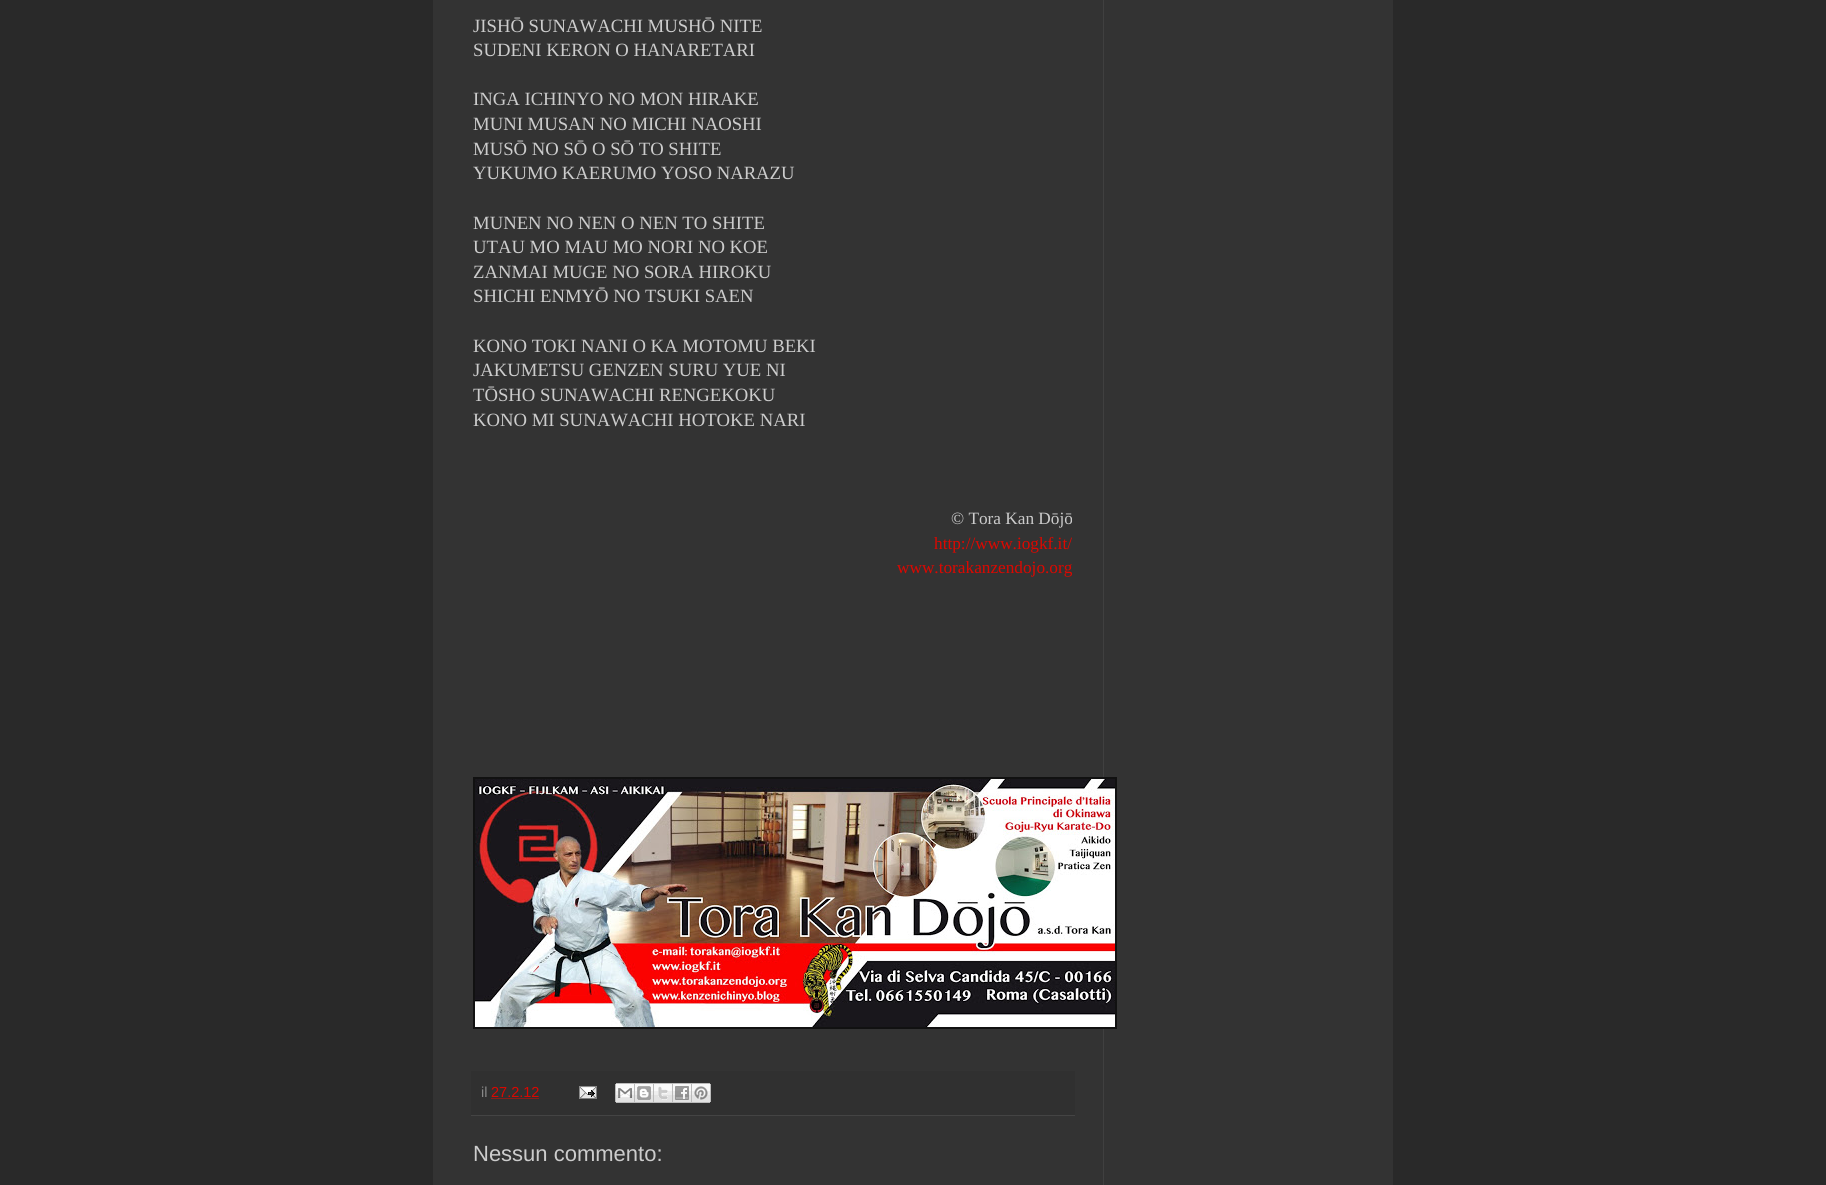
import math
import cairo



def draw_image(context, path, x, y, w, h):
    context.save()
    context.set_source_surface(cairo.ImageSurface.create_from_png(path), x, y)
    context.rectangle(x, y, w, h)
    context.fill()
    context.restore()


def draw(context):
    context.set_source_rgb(41 / 255, 41 / 255, 41 / 255)
    context.paint()
    context.set_source_rgb(51 / 255, 51 / 255, 51 / 255)
    context.rectangle(433, 0, 960, 1185)
    context.fill()
    context.set_source_rgb(64 / 255, 64 / 255, 64 / 255)
    context.rectangle(1103, 0, 1, 1185)
    context.fill()
    context.set_source_rgb(17 / 255, 17 / 255, 17 / 255)
    context.rectangle(473, 777, 644, 252)
    context.fill()
    draw_image(context, "images/1.png", 475, 779, 640, 248)
    context.set_source_rgb(48 / 255, 48 / 255, 48 / 255)
    context.rectangle(471, 1071, 604, 44)
    context.fill()
    context.set_source_rgb(68 / 255, 68 / 255, 68 / 255)
    context.rectangle(471, 1115, 604, 1)
    context.fill()
    context.new_path()
    context.move_to(491.5, 1098.5)
    context.line_to(539.5, 1098.5)
    context.set_source_rgb(221 / 255, 7 / 255, 0)
    context.set_line_width(1)
    context.set_dash([1, 1])
    context.stroke()
    draw_image(context, "images/2.png", 579, 1086, 18, 13)
    draw_image(context, "images/3.png", 615, 1083, 20, 20)
    draw_image(context, "images/4.png", 635, 1083, 19, 20)
    draw_image(context, "images/5.png", 654, 1083, 19, 20)
    draw_image(context, "images/6.png", 673, 1083, 19, 20)
    draw_image(context, "images/7.png", 692, 1083, 19, 20)
    context.select_font_face("Liberation Serif")
    context.set_font_size(18.7)
    context.set_source_rgb(204 / 255, 204 / 255, 204 / 255)
    context.move_to(473, 32)
    context.show_text("JISHŌ SUNAWACHI MUSHŌ NITE")
    context.move_to(473, 56)
    context.show_text("SUDENI KERON O HANARETARI")
    context.move_to(473, 105)
    context.show_text("INGA ICHINYO NO MON HIRAKE")
    context.move_to(473, 130)
    context.show_text("MUNI MUSAN NO MICHI NAOSHI")
    context.move_to(473, 155)
    context.show_text("MUSŌ NO SŌ O SŌ TO SHITE")
    context.move_to(473, 179)
    context.show_text("YUKUMO KAERUMO YOSO NARAZU")
    context.move_to(473, 229)
    context.show_text("MUNEN NO NEN O NEN TO SHITE")
    context.move_to(473, 253)
    context.show_text("UTAU MO MAU MO NORI NO KOE")
    context.move_to(473, 278)
    context.show_text("ZANMAI MUGE NO SORA HIROKU")
    context.move_to(473, 302)
    context.show_text("SHICHI ENMYŌ NO TSUKI SAEN")
    context.move_to(473, 352)
    context.show_text("KONO TOKI NANI O KA MOTOMU BEKI")
    context.move_to(473, 376)
    context.show_text("JAKUMETSU GENZEN SURU YUE NI")
    context.move_to(473, 401)
    context.show_text("TŌSHO SUNAWACHI RENGEKOKU")
    context.move_to(473, 426)
    context.show_text("KONO MI SUNAWACHI HOTOKE NARI")
    context.set_font_size(17.25)
    context.move_to(951, 524)
    context.show_text("© Tora Kan Dōjō")
    context.set_source_rgb(221 / 255, 7 / 255, 0)
    context.move_to(934, 549)
    context.show_text("http://www.iogkf.it/")
    context.move_to(897, 573)
    context.show_text("www.torakanzendojo.org")
    context.select_font_face("Liberation Sans")
    context.set_font_size(14.5)
    context.set_source_rgb(136 / 255, 136 / 255, 136 / 255)
    context.move_to(481, 1097)
    context.show_text("il")
    context.set_source_rgb(221 / 255, 7 / 255, 0)
    context.move_to(491, 1097)
    context.show_text("27.2.12")
    context.set_font_size(22)
    context.set_source_rgb(204 / 255, 204 / 255, 204 / 255)
    context.move_to(473, 1161)
    context.show_text("Nessun commento:")


surface = cairo.ImageSurface(cairo.Format.RGB24, 1826, 1185)
context = cairo.Context(surface)
options = cairo.FontOptions()
options.set_hint_metrics(cairo.HintMetrics.OFF)
options.set_hint_style(cairo.HintStyle.NONE)
context.set_font_options(options)
context.set_miter_limit(4)
draw(context)
surface.write_to_png("out.png")
